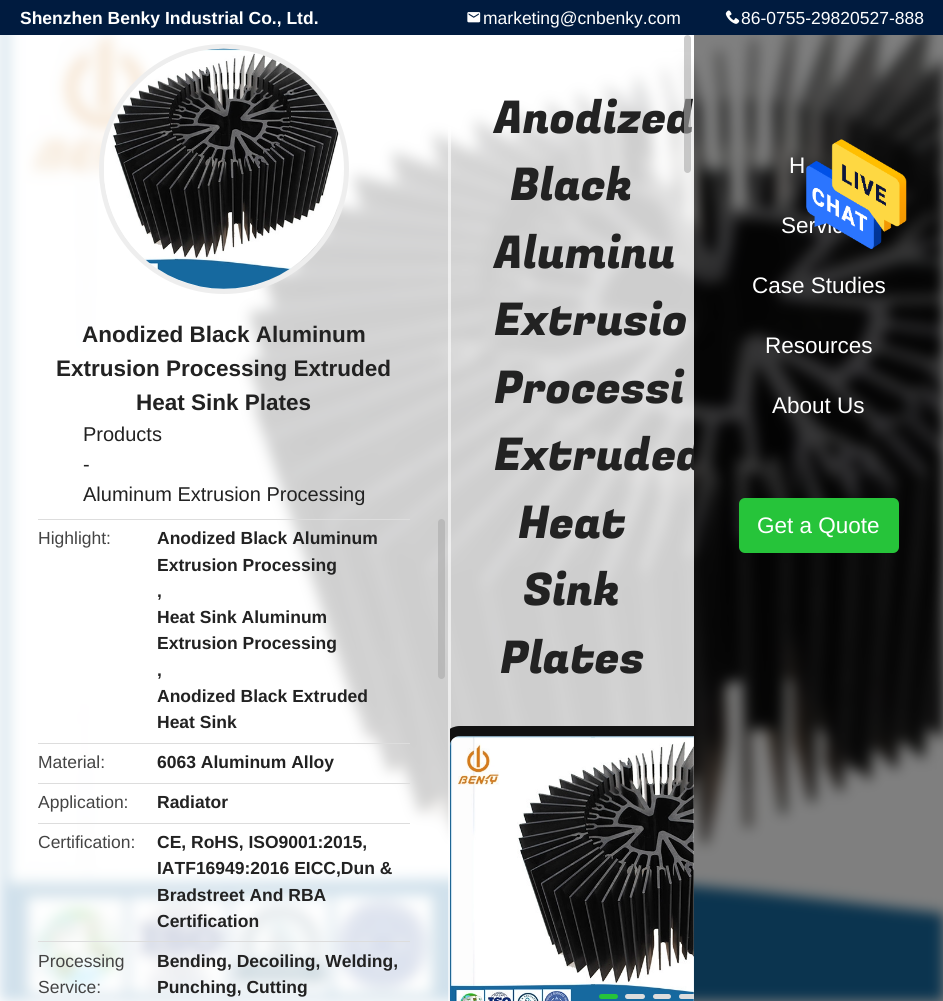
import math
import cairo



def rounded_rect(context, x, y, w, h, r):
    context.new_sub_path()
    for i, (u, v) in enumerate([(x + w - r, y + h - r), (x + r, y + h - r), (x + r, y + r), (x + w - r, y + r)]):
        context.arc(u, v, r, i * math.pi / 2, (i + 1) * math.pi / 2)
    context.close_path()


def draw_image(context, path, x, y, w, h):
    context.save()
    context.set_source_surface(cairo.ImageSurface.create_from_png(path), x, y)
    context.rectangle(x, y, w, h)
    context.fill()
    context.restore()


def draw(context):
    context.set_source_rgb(1, 1, 1)
    context.paint()
    context.set_source_rgb(0, 27 / 255, 63 / 255)
    context.rectangle(0, 0, 943, 35)
    context.fill()
    draw_image(context, "images/1.png", 467, 12, 14, 11)
    draw_image(context, "images/2.png", 725, 10, 15, 14)
    draw_image(context, "images/3.png", 0, 35, 943, 966)
    context.set_source_rgba(1, 1, 1, 0.8)
    context.rectangle(0, 35, 450, 966)
    context.fill()
    context.set_source_rgba(1, 1, 1, 0.6)
    context.rectangle(448, 127, 3, 874)
    context.fill()
    context.arc(224, 169, 122.5, 0, 2 * math.pi)
    context.set_source_rgb(238 / 255, 238 / 255, 238 / 255)
    context.set_line_width(5)
    context.stroke()
    draw_image(context, "images/4.png", 104, 48, 236, 241)
    context.set_source_rgb(221 / 255, 221 / 255, 221 / 255)
    context.rectangle(38, 519, 372, 1)
    context.fill()
    context.rectangle(38, 743, 372, 1)
    context.fill()
    context.rectangle(38, 783, 372, 1)
    context.fill()
    context.rectangle(38, 823, 372, 1)
    context.fill()
    context.rectangle(38, 941, 372, 1)
    context.fill()
    context.set_source_rgba(170 / 255, 170 / 255, 170 / 255, 0.6)
    rounded_rect(context, 438, 519, 7, 160, 3.5)
    context.fill()
    context.set_source_rgba(1, 1, 1, 0.8)
    context.rectangle(450, 52, 244, 949)
    context.fill()
    context.set_source_rgba(0, 0, 0, 0.5)
    context.rectangle(694, 35, 249, 966)
    context.fill()
    context.save()
    context.rectangle(450, 35, 244, 966)
    context.clip()
    rounded_rect(context, 445, 731, 406, 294, 15)
    context.set_source_rgb(17 / 255, 17 / 255, 17 / 255)
    context.set_line_width(10)
    context.stroke()
    context.restore()
    draw_image(context, "images/5.png", 450, 736, 244, 265)
    context.set_source_rgb(38 / 255, 196 / 255, 58 / 255)
    rounded_rect(context, 599, 994, 19, 5, 2.5)
    context.fill()
    context.set_source_rgb(221 / 255, 221 / 255, 221 / 255)
    rounded_rect(context, 625, 994, 20, 5, 2.5)
    context.fill()
    rounded_rect(context, 653, 994, 18, 5, 2.5)
    context.fill()
    context.new_path()
    context.move_to(681.5, 994)
    context.line_to(694, 994)
    context.line_to(694, 999)
    context.line_to(681.5, 999)
    context.curve_to(680, 999, 679, 998, 679, 996.5)
    context.curve_to(679, 995, 680, 994, 681.5, 994)
    context.close_path()
    context.fill()
    context.set_source_rgb(38 / 255, 196 / 255, 58 / 255)
    rounded_rect(context, 739, 498, 160, 55, 6)
    context.fill()
    context.select_font_face("Liberation Sans", cairo.FontSlant.NORMAL, cairo.FontWeight.BOLD)
    context.set_font_size(17.5)
    context.set_source_rgb(1, 1, 1)
    context.move_to(20, 24)
    context.show_text("Shenzhen Benky Industrial Co., Ltd.")
    context.select_font_face("Liberation Sans")
    context.move_to(483, 24)
    context.show_text("marketing@cnbenky.com")
    context.move_to(741, 24)
    context.show_text("86-0755-29820527-888")
    context.select_font_face("Liberation Sans", cairo.FontSlant.NORMAL, cairo.FontWeight.BOLD)
    context.set_font_size(22.5)
    context.set_source_rgb(34 / 255, 34 / 255, 34 / 255)
    context.move_to(82, 342)
    context.show_text("Anodized Black Aluminum")
    context.move_to(56, 376)
    context.show_text("Extrusion Processing Extruded")
    context.move_to(136, 410)
    context.show_text("Heat Sink Plates")
    context.select_font_face("Liberation Sans")
    context.set_font_size(20)
    context.move_to(83, 441)
    context.show_text("Products")
    context.move_to(83, 471)
    context.show_text("-")
    context.move_to(83, 501)
    context.show_text("Aluminum Extrusion Processing")
    context.set_font_size(17.5)
    context.set_source_rgb(68 / 255, 68 / 255, 68 / 255)
    context.move_to(38, 544)
    context.show_text("Highlight:")
    context.select_font_face("Liberation Sans", cairo.FontSlant.NORMAL, cairo.FontWeight.BOLD)
    context.set_source_rgb(34 / 255, 34 / 255, 34 / 255)
    context.move_to(157, 544)
    context.show_text("Anodized Black Aluminum")
    context.move_to(157, 571)
    context.show_text("Extrusion Processing")
    context.move_to(157, 597)
    context.show_text(",")
    context.move_to(157, 623)
    context.show_text("Heat Sink Aluminum")
    context.move_to(157, 649)
    context.show_text("Extrusion Processing")
    context.move_to(157, 676)
    context.show_text(",")
    context.move_to(157, 702)
    context.show_text("Anodized Black Extruded")
    context.move_to(157, 728)
    context.show_text("Heat Sink")
    context.select_font_face("Liberation Sans")
    context.set_source_rgb(68 / 255, 68 / 255, 68 / 255)
    context.move_to(38, 768)
    context.show_text("Material:")
    context.select_font_face("Liberation Sans", cairo.FontSlant.NORMAL, cairo.FontWeight.BOLD)
    context.set_source_rgb(34 / 255, 34 / 255, 34 / 255)
    context.move_to(157, 768)
    context.show_text("6063 Aluminum Alloy")
    context.select_font_face("Liberation Sans")
    context.set_source_rgb(68 / 255, 68 / 255, 68 / 255)
    context.move_to(38, 808)
    context.show_text("Application:")
    context.select_font_face("Liberation Sans", cairo.FontSlant.NORMAL, cairo.FontWeight.BOLD)
    context.set_source_rgb(34 / 255, 34 / 255, 34 / 255)
    context.move_to(157, 808)
    context.show_text("Radiator")
    context.select_font_face("Liberation Sans")
    context.set_source_rgb(68 / 255, 68 / 255, 68 / 255)
    context.move_to(38, 848)
    context.show_text("Certification:")
    context.select_font_face("Liberation Sans", cairo.FontSlant.NORMAL, cairo.FontWeight.BOLD)
    context.set_source_rgb(34 / 255, 34 / 255, 34 / 255)
    context.move_to(157, 848)
    context.show_text("CE, RoHS, ISO9001:2015,")
    context.move_to(157, 874)
    context.show_text("IATF16949:2016 EICC,Dun &")
    context.move_to(157, 901)
    context.show_text("Bradstreet And RBA")
    context.move_to(157, 927)
    context.show_text("Certification")
    context.select_font_face("Liberation Sans")
    context.set_source_rgb(68 / 255, 68 / 255, 68 / 255)
    context.move_to(38, 967)
    context.show_text("Processing")
    context.move_to(38, 993)
    context.show_text("Service:")
    context.select_font_face("Liberation Sans", cairo.FontSlant.NORMAL, cairo.FontWeight.BOLD)
    context.set_source_rgb(34 / 255, 34 / 255, 34 / 255)
    context.move_to(157, 967)
    context.show_text("Bending, Decoiling, Welding,")
    context.move_to(157, 993)
    context.show_text("Punching, Cutting")
    context.select_font_face("Fugaz One")
    context.set_font_size(45)
    context.move_to(494, 133)
    context.show_text("Anodized")
    context.set_source_rgba(170 / 255, 170 / 255, 170 / 255, 0.6)
    rounded_rect(context, 684, 35, 7, 138, 3.5)
    context.fill()
    context.set_source_rgb(34 / 255, 34 / 255, 34 / 255)
    context.move_to(510, 200)
    context.show_text("Black")
    context.move_to(494, 268)
    context.show_text("Aluminu")
    context.move_to(494, 335)
    context.show_text("Extrusio")
    context.move_to(494, 403)
    context.show_text("Processi")
    context.save()
    context.rectangle(450, 35, 244, 966)
    context.clip()
    context.move_to(494, 470)
    context.show_text("Extruded")
    context.restore()
    context.move_to(518, 538)
    context.show_text("Heat")
    context.move_to(523, 605)
    context.show_text("Sink")
    context.move_to(500, 673)
    context.show_text("Plates")
    context.select_font_face("Liberation Sans")
    context.set_font_size(22.5)
    context.set_source_rgb(1, 1, 1)
    context.move_to(789, 173)
    context.show_text("H")
    context.move_to(781, 233)
    context.show_text("Servic")
    context.move_to(752, 293)
    context.show_text("Case Studies")
    context.move_to(765, 353)
    context.show_text("Resources")
    context.move_to(772, 413)
    context.show_text("About Us")
    context.move_to(757, 533)
    context.show_text("Get a Quote")
    draw_image(context, "images/6.png", 806, 139, 101, 110)


surface = cairo.ImageSurface(cairo.Format.RGB24, 943, 1001)
context = cairo.Context(surface)
options = cairo.FontOptions()
options.set_hint_metrics(cairo.HintMetrics.OFF)
options.set_hint_style(cairo.HintStyle.NONE)
context.set_font_options(options)
context.set_miter_limit(4)
draw(context)
surface.write_to_png("out.png")
